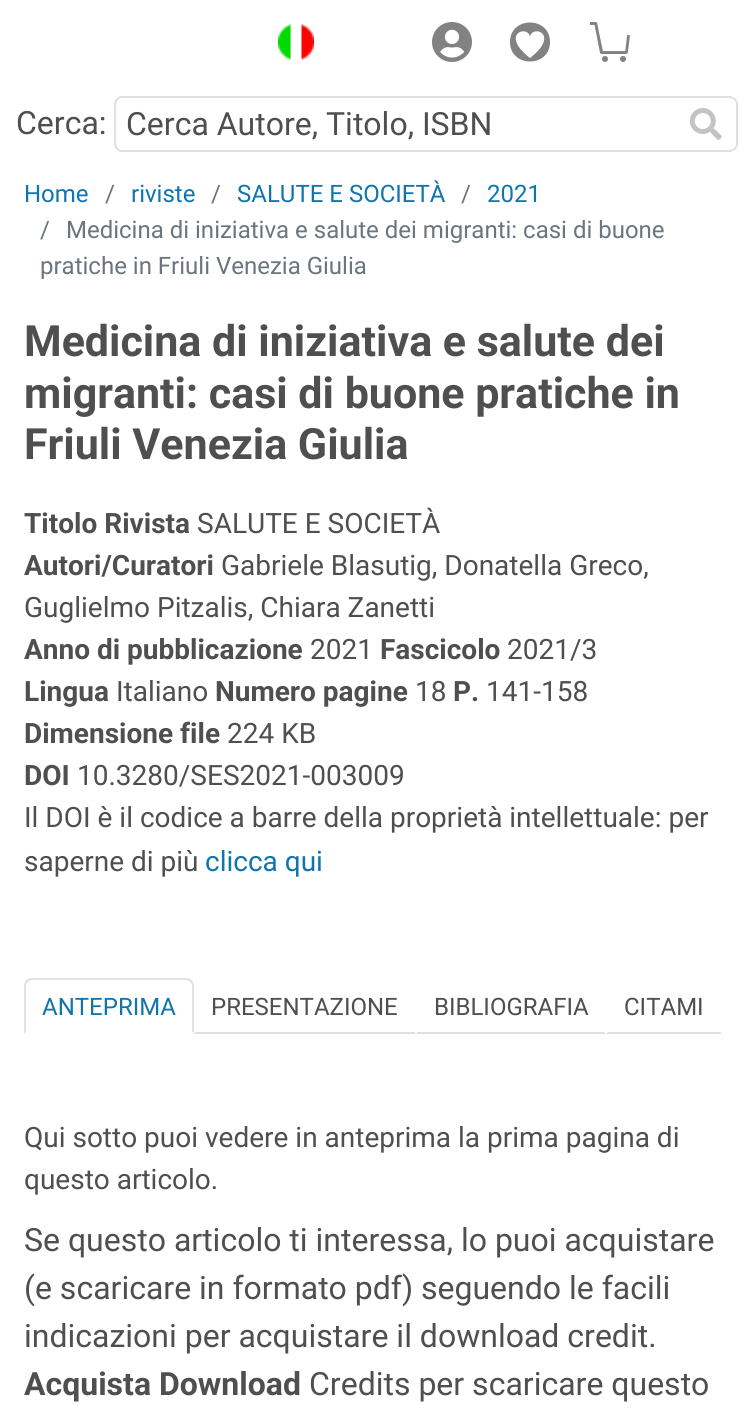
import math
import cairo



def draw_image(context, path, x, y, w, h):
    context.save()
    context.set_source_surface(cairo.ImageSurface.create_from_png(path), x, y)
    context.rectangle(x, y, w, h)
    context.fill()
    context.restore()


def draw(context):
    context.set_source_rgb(1, 1, 1)
    context.paint()
    draw_image(context, "images/1.png", 278, 24, 36, 36)
    draw_image(context, "images/2.png", 432, 22, 40, 40)
    context.set_source_rgb(130 / 255, 130 / 255, 130 / 255)
    context.new_path()
    context.move_to(530, 58)
    context.curve_to(499, 34, 528, 24, 530, 37)
    context.curve_to(532, 24, 561, 34, 530, 58)
    context.close_path()
    context.move_to(550, 42)
    context.curve_to(550, 16, 510, 16, 510, 42)
    context.curve_to(510, 68, 550, 68, 550, 42)
    context.close_path()
    context.fill()
    draw_image(context, "images/3.png", 590, 22, 40, 40)
    context.set_source_rgb(224 / 255, 224 / 255, 224 / 255)
    context.set_fill_rule(cairo.FillRule.EVEN_ODD)
    context.new_path()
    context.move_to(122, 96)
    context.line_to(674, 96)
    context.line_to(674, 152)
    context.line_to(122, 152)
    context.curve_to(118, 152, 114, 148, 114, 144)
    context.line_to(114, 104)
    context.curve_to(114, 100, 118, 96, 122, 96)
    context.close_path()
    context.move_to(122, 98)
    context.line_to(674, 98)
    context.line_to(674, 150)
    context.line_to(122, 150)
    context.curve_to(119, 150, 116, 147, 116, 144)
    context.line_to(116, 104)
    context.curve_to(116, 101, 119, 98, 122, 98)
    context.close_path()
    context.fill()
    context.new_path()
    context.move_to(674, 96)
    context.line_to(730, 96)
    context.curve_to(734, 96, 738, 100, 738, 104)
    context.line_to(738, 144)
    context.curve_to(738, 148, 734, 152, 730, 152)
    context.line_to(674, 152)
    context.close_path()
    context.move_to(674, 98)
    context.line_to(730, 98)
    context.curve_to(733, 98, 736, 101, 736, 104)
    context.line_to(736, 144)
    context.curve_to(736, 147, 733, 150, 730, 150)
    context.line_to(674, 150)
    context.close_path()
    context.fill()
    draw_image(context, "images/4.png", 690, 108, 32, 32)
    context.set_source_rgb(222 / 255, 226 / 255, 230 / 255)
    context.set_fill_rule(cairo.FillRule.WINDING)
    context.new_path()
    context.move_to(32, 978)
    context.curve_to(30, 978, 28, 979, 26, 980)
    context.line_to(28, 982)
    context.line_to(31, 980)
    context.line_to(187, 980)
    context.line_to(190, 982)
    context.line_to(192, 980)
    context.curve_to(190, 979, 188, 978, 186, 978)
    context.close_path()
    context.fill()
    context.new_path()
    context.move_to(194, 1034)
    context.line_to(194, 986)
    context.curve_to(194, 984, 193, 982, 192, 980)
    context.line_to(190, 982)
    context.curve_to(191, 983, 192, 984, 192, 986)
    context.line_to(192, 1032)
    context.close_path()
    context.fill()
    context.set_source_rgb(1, 1, 1)
    context.new_path()
    context.move_to(194, 1034)
    context.line_to(192, 1032)
    context.line_to(26, 1032)
    context.line_to(24, 1034)
    context.close_path()
    context.fill()
    context.set_source_rgb(222 / 255, 226 / 255, 230 / 255)
    context.new_path()
    context.move_to(24, 1034)
    context.line_to(26, 1032)
    context.line_to(26, 986)
    context.curve_to(26, 984, 27, 983, 28, 982)
    context.line_to(26, 980)
    context.curve_to(25, 982, 24, 984, 24, 986)
    context.close_path()
    context.fill()
    context.set_source_rgb(224 / 255, 224 / 255, 224 / 255)
    context.new_path()
    context.move_to(416, 1034)
    context.line_to(414, 1032)
    context.line_to(196, 1032)
    context.line_to(194, 1034)
    context.close_path()
    context.fill()
    context.new_path()
    context.move_to(606, 1034)
    context.line_to(604, 1032)
    context.line_to(418, 1032)
    context.line_to(416, 1034)
    context.close_path()
    context.fill()
    context.new_path()
    context.move_to(722, 1034)
    context.line_to(720, 1032)
    context.line_to(608, 1032)
    context.line_to(606, 1034)
    context.close_path()
    context.fill()
    context.select_font_face("Roboto")
    context.set_font_size(32)
    context.set_source_rgb(79 / 255, 79 / 255, 79 / 255)
    context.move_to(16, 134)
    context.show_text("Cerca:")
    context.move_to(126, 135)
    context.show_text("Cerca Autore, Titolo, ISBN")
    context.set_font_size(24)
    context.set_source_rgb(16 / 255, 116 / 255, 173 / 255)
    context.move_to(24, 202)
    context.show_text("Home")
    context.set_source_rgb(108 / 255, 117 / 255, 125 / 255)
    context.move_to(105, 202)
    context.show_text("/")
    context.set_source_rgb(16 / 255, 116 / 255, 173 / 255)
    context.move_to(131, 202)
    context.show_text("riviste")
    context.set_source_rgb(108 / 255, 117 / 255, 125 / 255)
    context.move_to(211, 202)
    context.show_text("/")
    context.set_source_rgb(16 / 255, 116 / 255, 173 / 255)
    context.move_to(237, 202)
    context.show_text("SALUTE E SOCIETÀ")
    context.set_source_rgb(108 / 255, 117 / 255, 125 / 255)
    context.move_to(461, 202)
    context.show_text("/")
    context.set_source_rgb(16 / 255, 116 / 255, 173 / 255)
    context.move_to(487, 202)
    context.show_text("2021")
    context.set_source_rgb(108 / 255, 117 / 255, 125 / 255)
    context.move_to(40, 238)
    context.show_text("/")
    context.move_to(66, 238)
    context.show_text("Medicina di iniziativa e salute dei migranti: casi di buone")
    context.move_to(40, 274)
    context.show_text("pratiche in Friuli Venezia Giulia")
    context.select_font_face("Roboto", cairo.FontSlant.NORMAL, cairo.FontWeight.BOLD)
    context.set_font_size(43)
    context.set_source_rgb(79 / 255, 79 / 255, 79 / 255)
    context.move_to(24, 356)
    context.show_text("Medicina di iniziativa e salute dei")
    context.move_to(24, 408)
    context.show_text("migranti: casi di buone pratiche in")
    context.move_to(24, 459)
    context.show_text("Friuli Venezia Giulia")
    context.set_font_size(28)
    context.move_to(24, 533)
    context.show_text("Titolo Rivista")
    context.select_font_face("Roboto")
    context.move_to(197, 533)
    context.show_text("SALUTE E SOCIETÀ")
    context.select_font_face("Roboto", cairo.FontSlant.NORMAL, cairo.FontWeight.BOLD)
    context.move_to(24, 575)
    context.show_text("Autori/Curatori")
    context.select_font_face("Roboto")
    context.move_to(221, 575)
    context.show_text("Gabriele Blasutig, Donatella Greco,")
    context.move_to(24, 617)
    context.show_text("Guglielmo Pitzalis, Chiara Zanetti")
    context.select_font_face("Roboto", cairo.FontSlant.NORMAL, cairo.FontWeight.BOLD)
    context.move_to(24, 659)
    context.show_text("Anno di pubblicazione")
    context.select_font_face("Roboto")
    context.move_to(310, 659)
    context.show_text("2021")
    context.select_font_face("Roboto", cairo.FontSlant.NORMAL, cairo.FontWeight.BOLD)
    context.move_to(380, 659)
    context.show_text("Fascicolo")
    context.select_font_face("Roboto")
    context.move_to(507, 659)
    context.show_text("2021/3")
    context.select_font_face("Roboto", cairo.FontSlant.NORMAL, cairo.FontWeight.BOLD)
    context.move_to(24, 701)
    context.show_text("Lingua")
    context.select_font_face("Roboto")
    context.move_to(116, 701)
    context.show_text("Italiano")
    context.select_font_face("Roboto", cairo.FontSlant.NORMAL, cairo.FontWeight.BOLD)
    context.move_to(215, 701)
    context.show_text("Numero pagine")
    context.select_font_face("Roboto")
    context.move_to(415, 701)
    context.show_text("18")
    context.select_font_face("Roboto", cairo.FontSlant.NORMAL, cairo.FontWeight.BOLD)
    context.move_to(453, 701)
    context.show_text("P.")
    context.select_font_face("Roboto")
    context.move_to(486, 701)
    context.show_text("141-158")
    context.select_font_face("Roboto", cairo.FontSlant.NORMAL, cairo.FontWeight.BOLD)
    context.move_to(24, 743)
    context.show_text("Dimensione file")
    context.select_font_face("Roboto")
    context.move_to(227, 743)
    context.show_text("224 KB")
    context.select_font_face("Roboto", cairo.FontSlant.NORMAL, cairo.FontWeight.BOLD)
    context.move_to(24, 785)
    context.show_text("DOI")
    context.select_font_face("Roboto")
    context.move_to(77, 785)
    context.show_text("10.3280/SES2021-003009")
    context.move_to(24, 827)
    context.show_text("Il DOI è il codice a barre della proprietà intellettuale: per")
    context.move_to(24, 871)
    context.show_text("saperne di più")
    context.set_source_rgb(16 / 255, 116 / 255, 173 / 255)
    context.move_to(205, 871)
    context.show_text("clicca qui")
    context.set_font_size(24)
    context.move_to(42, 1015)
    context.show_text("ANTEPRIMA")
    context.set_source_rgb(79 / 255, 79 / 255, 79 / 255)
    context.move_to(211, 1015)
    context.show_text("PRESENTAZIONE")
    context.move_to(434, 1015)
    context.show_text("BIBLIOGRAFIA")
    context.move_to(624, 1015)
    context.show_text("CITAMI")
    context.set_font_size(28)
    context.move_to(24, 1147)
    context.show_text("Qui sotto puoi vedere in anteprima la prima pagina di")
    context.move_to(24, 1189)
    context.show_text("questo articolo.")
    context.set_font_size(32)
    context.move_to(24, 1251)
    context.show_text("Se questo articolo ti interessa, lo puoi acquistare")
    context.move_to(24, 1299)
    context.show_text("(e scaricare in formato pdf) seguendo le facili")
    context.move_to(24, 1347)
    context.show_text("indicazioni per acquistare il download credit.")
    context.select_font_face("Roboto", cairo.FontSlant.NORMAL, cairo.FontWeight.BOLD)
    context.move_to(24, 1395)
    context.show_text("Acquista Download")
    context.select_font_face("Roboto")
    context.move_to(309, 1395)
    context.show_text("Credits per scaricare questo")


surface = cairo.ImageSurface(cairo.Format.RGB24, 746, 1411)
context = cairo.Context(surface)
options = cairo.FontOptions()
options.set_hint_metrics(cairo.HintMetrics.OFF)
options.set_hint_style(cairo.HintStyle.NONE)
context.set_font_options(options)
context.set_miter_limit(4)
draw(context)
surface.write_to_png("out.png")
